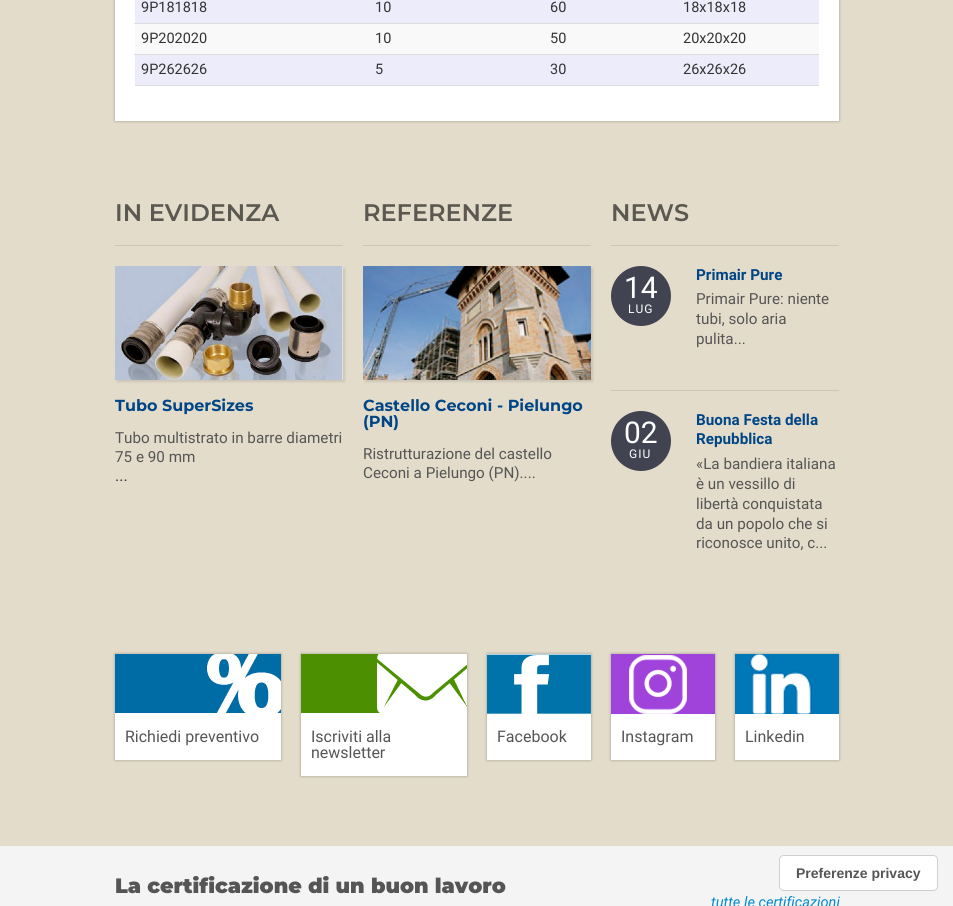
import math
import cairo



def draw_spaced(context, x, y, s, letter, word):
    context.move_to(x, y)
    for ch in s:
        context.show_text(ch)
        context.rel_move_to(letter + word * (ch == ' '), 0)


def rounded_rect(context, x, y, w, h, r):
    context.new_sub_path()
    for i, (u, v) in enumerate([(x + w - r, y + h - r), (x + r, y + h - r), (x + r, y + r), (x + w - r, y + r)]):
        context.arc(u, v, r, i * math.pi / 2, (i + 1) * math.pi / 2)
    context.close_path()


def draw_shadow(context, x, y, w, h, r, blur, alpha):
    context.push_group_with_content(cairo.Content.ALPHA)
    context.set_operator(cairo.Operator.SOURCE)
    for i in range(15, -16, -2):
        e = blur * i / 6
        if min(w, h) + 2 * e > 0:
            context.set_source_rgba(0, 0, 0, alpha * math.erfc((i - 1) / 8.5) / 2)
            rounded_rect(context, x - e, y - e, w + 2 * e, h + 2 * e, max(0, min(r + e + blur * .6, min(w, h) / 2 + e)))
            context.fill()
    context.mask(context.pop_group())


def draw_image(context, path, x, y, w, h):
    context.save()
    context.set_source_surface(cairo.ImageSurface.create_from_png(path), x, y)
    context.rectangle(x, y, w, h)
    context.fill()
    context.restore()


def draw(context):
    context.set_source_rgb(227 / 255, 220 / 255, 202 / 255)
    context.paint()
    context.set_source_rgb(0, 0, 0)
    draw_shadow(context, 115, -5, 724, 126, 0, 1.5, 0.3)
    context.set_source_rgb(1, 1, 1)
    context.rectangle(115, 0, 724, 121)
    context.fill()
    context.set_source_rgb(221 / 255, 221 / 255, 221 / 255)
    context.rectangle(135, 85, 684, 1)
    context.fill()
    context.set_source_rgb(236 / 255, 236 / 255, 251 / 255)
    context.rectangle(135, 0, 684, 23)
    context.fill()
    context.set_source_rgb(249 / 255, 249 / 255, 249 / 255)
    context.rectangle(135, 24, 684, 30)
    context.fill()
    context.set_source_rgb(221 / 255, 221 / 255, 221 / 255)
    context.rectangle(134, 23, 685, 1)
    context.fill()
    context.set_source_rgb(236 / 255, 236 / 255, 251 / 255)
    context.rectangle(135, 55, 684, 30)
    context.fill()
    context.set_source_rgb(221 / 255, 221 / 255, 221 / 255)
    context.rectangle(134, 54, 685, 1)
    context.fill()
    context.set_source_rgb(204 / 255, 198 / 255, 182 / 255)
    context.rectangle(115, 245, 228, 1)
    context.fill()
    context.set_source_rgb(0, 0, 0)
    draw_shadow(context, 117, 268, 228, 114, 0, 1, 0.1)
    draw_image(context, "images/1.png", 115, 266, 228, 114)
    context.set_source_rgb(204 / 255, 198 / 255, 182 / 255)
    context.rectangle(363, 245, 228, 1)
    context.fill()
    context.set_source_rgb(0, 0, 0)
    draw_shadow(context, 365, 268, 228, 114, 0, 1, 0.1)
    draw_image(context, "images/2.png", 363, 266, 228, 114)
    context.set_source_rgb(204 / 255, 198 / 255, 182 / 255)
    context.rectangle(611, 245, 228, 1)
    context.fill()
    context.rectangle(611, 390, 228, 1)
    context.fill()
    context.set_source_rgb(66 / 255, 67 / 255, 81 / 255)
    context.arc(641, 296, 30, 0, 2 * math.pi)
    context.fill()
    context.arc(641, 441, 30, 0, 2 * math.pi)
    context.fill()
    context.set_source_rgb(0, 0, 0)
    draw_shadow(context, 115, 654, 166, 106, 0, 1.5, 0.3)
    context.set_source_rgb(1, 1, 1)
    context.rectangle(115, 713, 166, 47)
    context.fill()
    draw_image(context, "images/3.png", 115, 654, 166, 59)
    context.set_source_rgb(0, 0, 0)
    draw_shadow(context, 301, 654, 166, 122, 0, 1.5, 0.3)
    context.set_source_rgb(1, 1, 1)
    context.rectangle(301, 713, 166, 63)
    context.fill()
    draw_image(context, "images/4.png", 301, 654, 166, 59)
    context.set_source_rgb(0, 0, 0)
    draw_shadow(context, 487, 654, 104, 106, 0, 1.5, 0.3)
    context.set_source_rgb(1, 1, 1)
    context.rectangle(487, 654, 104, 106)
    context.fill()
    draw_image(context, "images/5.png", 487, 654, 104, 60)
    context.set_source_rgb(0, 0, 0)
    draw_shadow(context, 611, 654, 104, 106, 0, 1.5, 0.3)
    context.set_source_rgb(1, 1, 1)
    context.rectangle(611, 714, 104, 46)
    context.fill()
    draw_image(context, "images/6.png", 611, 654, 104, 60)
    context.set_source_rgb(0, 0, 0)
    draw_shadow(context, 735, 654, 104, 106, 0, 1.5, 0.3)
    context.set_source_rgb(1, 1, 1)
    context.rectangle(735, 714, 104, 46)
    context.fill()
    draw_image(context, "images/7.png", 735, 654, 104, 60)
    context.set_source_rgb(244 / 255, 244 / 255, 244 / 255)
    context.rectangle(0, 846, 953, 60)
    context.fill()
    rounded_rect(context, 779.5, 855.5, 158, 35, 4.5)
    context.set_source_rgb(207 / 255, 207 / 255, 207 / 255)
    context.set_line_width(1)
    context.stroke()
    context.set_source_rgb(1, 1, 1)
    rounded_rect(context, 780, 856, 157, 34, 4)
    context.fill()
    context.select_font_face("Roboto")
    context.set_font_size(14.5)
    context.set_source_rgb(51 / 255, 51 / 255, 51 / 255)
    context.move_to(141, 12)
    context.show_text("9P181818")
    context.move_to(375, 12)
    context.show_text("10")
    context.move_to(550, 12)
    context.show_text("60")
    context.move_to(683, 12)
    context.show_text("18x18x18")
    context.move_to(141, 43)
    context.show_text("9P202020")
    context.move_to(375, 43)
    context.show_text("10")
    context.move_to(550, 43)
    context.show_text("50")
    context.move_to(683, 43)
    context.show_text("20x20x20")
    context.move_to(141, 74)
    context.show_text("9P262626")
    context.move_to(375, 74)
    context.show_text("5")
    context.move_to(550, 74)
    context.show_text("30")
    context.move_to(683, 74)
    context.show_text("26x26x26")
    context.select_font_face("Montserrat SemiBold")
    context.set_font_size(24)
    context.set_source_rgb(91 / 255, 88 / 255, 81 / 255)
    context.move_to(115, 221)
    context.show_text("IN EVIDENZA")
    context.select_font_face("Montserrat", cairo.FontSlant.NORMAL, cairo.FontWeight.BOLD)
    context.set_font_size(16)
    context.set_source_rgb(0, 70 / 255, 135 / 255)
    context.move_to(115, 411)
    context.show_text("Tubo SuperSizes")
    context.select_font_face("Roboto")
    context.set_font_size(15.25)
    context.set_source_rgb(85 / 255, 85 / 255, 85 / 255)
    context.move_to(115, 443)
    context.show_text("Tubo multistrato in barre diametri")
    context.move_to(115, 462)
    context.show_text("75 e 90 mm")
    context.set_font_size(16)
    context.set_source_rgb(51 / 255, 51 / 255, 51 / 255)
    context.move_to(115, 481)
    context.show_text("...")
    context.select_font_face("Montserrat SemiBold")
    context.set_font_size(24)
    context.set_source_rgb(91 / 255, 88 / 255, 81 / 255)
    context.move_to(363, 221)
    context.show_text("REFERENZE")
    context.select_font_face("Montserrat", cairo.FontSlant.NORMAL, cairo.FontWeight.BOLD)
    context.set_font_size(16)
    context.set_source_rgb(0, 70 / 255, 135 / 255)
    context.move_to(363, 411)
    context.show_text("Castello Ceconi - Pielungo")
    context.move_to(363, 427)
    context.show_text("(PN)")
    context.select_font_face("Roboto")
    context.set_font_size(15.25)
    context.set_source_rgb(85 / 255, 85 / 255, 85 / 255)
    context.move_to(363, 459)
    context.show_text("Ristrutturazione del castello")
    context.move_to(363, 478)
    context.show_text("Ceconi a Pielungo (PN)....")
    context.select_font_face("Montserrat SemiBold")
    context.set_font_size(24)
    context.set_source_rgb(91 / 255, 88 / 255, 81 / 255)
    context.move_to(611, 221)
    context.show_text("NEWS")
    context.select_font_face("Roboto", cairo.FontSlant.NORMAL, cairo.FontWeight.BOLD)
    context.set_font_size(15.25)
    context.set_source_rgb(0, 70 / 255, 135 / 255)
    context.move_to(696, 280)
    context.show_text("Primair Pure")
    context.select_font_face("Roboto")
    context.set_font_size(30)
    context.set_source_rgb(1, 1, 1)
    context.move_to(624, 298)
    context.show_text("14")
    context.set_font_size(12)
    draw_spaced(context, 628, 313, "LUG", 1, 0)
    context.set_font_size(15.25)
    context.set_source_rgb(85 / 255, 85 / 255, 85 / 255)
    context.move_to(696, 304)
    context.show_text("Primair Pure: niente")
    context.move_to(696, 324)
    context.show_text("tubi, solo aria")
    context.move_to(696, 344)
    context.show_text("pulita...")
    context.set_font_size(30)
    context.set_source_rgb(1, 1, 1)
    context.move_to(624, 443)
    context.show_text("02")
    context.set_font_size(12)
    draw_spaced(context, 629, 458, "GIU", 1, 0)
    context.select_font_face("Roboto", cairo.FontSlant.NORMAL, cairo.FontWeight.BOLD)
    context.set_font_size(15.25)
    context.set_source_rgb(0, 70 / 255, 135 / 255)
    context.move_to(696, 425)
    context.show_text("Buona Festa della")
    context.move_to(696, 444)
    context.show_text("Repubblica")
    context.select_font_face("Roboto")
    context.set_source_rgb(85 / 255, 85 / 255, 85 / 255)
    context.move_to(696, 469)
    context.show_text("«La bandiera italiana")
    context.move_to(696, 489)
    context.show_text("è un vessillo di")
    context.move_to(696, 509)
    context.show_text("libertà conquistata")
    context.move_to(696, 529)
    context.show_text("da un popolo che si")
    context.move_to(696, 548)
    context.show_text("riconosce unito, c...")
    context.set_font_size(16)
    context.move_to(125, 742)
    context.show_text("Richiedi preventivo")
    context.move_to(311, 742)
    context.show_text("Iscriviti alla")
    context.move_to(311, 758)
    context.show_text("newsletter")
    context.move_to(497, 742)
    context.show_text("Facebook")
    context.move_to(621, 742)
    context.show_text("Instagram")
    context.move_to(745, 742)
    context.show_text("Linkedin")
    context.select_font_face("Montserrat Black")
    context.set_font_size(20.75)
    context.move_to(115, 893)
    context.show_text("La certificazione di un buon lavoro")
    context.select_font_face("Roboto", cairo.FontSlant.ITALIC)
    context.set_font_size(14.5)
    context.set_source_rgb(0, 136 / 255, 204 / 255)
    context.move_to(711, 907)
    context.show_text("tutte le certificazioni")
    context.select_font_face("Liberation Sans", cairo.FontSlant.NORMAL, cairo.FontWeight.BOLD)
    context.set_font_size(14)
    context.set_source_rgb(85 / 255, 85 / 255, 85 / 255)
    context.move_to(796, 878)
    context.show_text("Preferenze privacy")


surface = cairo.ImageSurface(cairo.Format.RGB24, 953, 906)
context = cairo.Context(surface)
options = cairo.FontOptions()
options.set_hint_metrics(cairo.HintMetrics.OFF)
options.set_hint_style(cairo.HintStyle.NONE)
context.set_font_options(options)
context.set_miter_limit(4)
draw(context)
surface.write_to_png("out.png")
